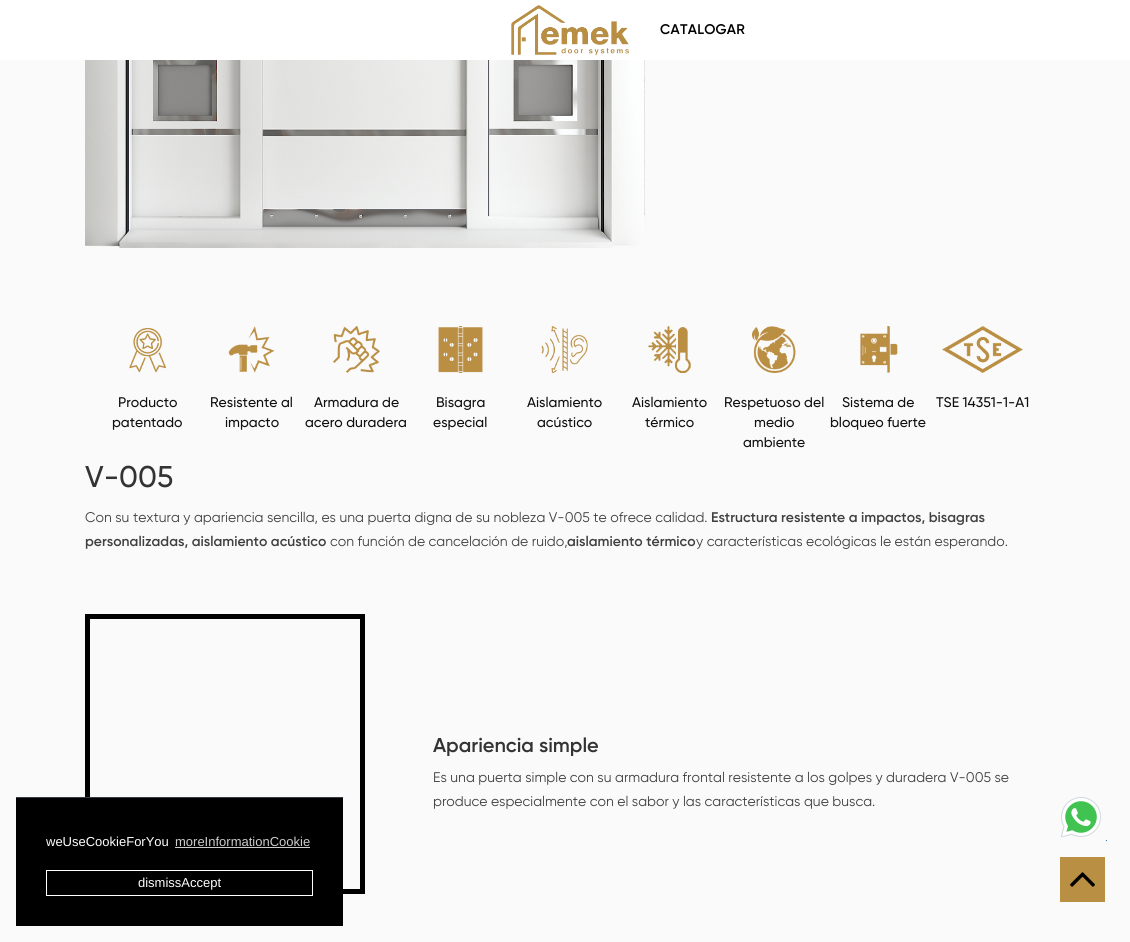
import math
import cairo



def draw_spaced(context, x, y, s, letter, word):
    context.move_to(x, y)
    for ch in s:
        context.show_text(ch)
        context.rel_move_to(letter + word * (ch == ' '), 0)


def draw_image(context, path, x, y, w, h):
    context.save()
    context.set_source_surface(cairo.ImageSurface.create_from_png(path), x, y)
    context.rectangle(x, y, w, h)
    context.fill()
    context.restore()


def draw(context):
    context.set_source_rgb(250 / 255, 250 / 255, 250 / 255)
    context.paint()
    context.set_source_rgb(1, 1, 1)
    context.rectangle(0, 0, 1130, 60)
    context.fill()
    draw_image(context, "images/1.png", 511, 5, 118, 50)
    draw_image(context, "images/2.png", 1061, 797, 40, 41)
    draw_image(context, "images/3.png", 85, 60, 560, 188)
    draw_image(context, "images/4.png", 129, 328, 37, 45)
    draw_image(context, "images/5.png", 228, 326, 47, 47)
    draw_image(context, "images/6.png", 333, 326, 47, 47)
    draw_image(context, "images/7.png", 438, 326, 45, 47)
    draw_image(context, "images/8.png", 541, 326, 47, 47)
    draw_image(context, "images/9.png", 648, 326, 43, 47)
    draw_image(context, "images/10.png", 752, 326, 44, 47)
    draw_image(context, "images/11.png", 860, 326, 38, 47)
    draw_image(context, "images/12.png", 942, 326, 81, 47)
    context.rectangle(87.5, 616.5, 275, 275)
    context.set_source_rgb(0, 0, 0)
    context.set_line_width(5)
    context.stroke()
    context.set_source_rgb(185 / 255, 143 / 255, 67 / 255)
    context.rectangle(1060, 857, 45, 45)
    context.fill()
    draw_image(context, "images/13.png", 1070, 872, 25, 15)
    context.set_source_rgb(0, 0, 0)
    context.rectangle(16, 798, 327, 128)
    context.fill()
    context.set_source_rgb(52 / 255, 59 / 255, 69 / 255)
    context.rectangle(16, 797, 327, 1)
    context.fill()
    context.set_source_rgb(204 / 255, 204 / 255, 204 / 255)
    context.rectangle(175, 847, 135, 1)
    context.fill()
    context.rectangle(46.5, 870.5, 266, 25)
    context.set_source_rgb(1, 1, 1)
    context.set_line_width(1)
    context.stroke()
    context.select_font_face("Gilroy SemiBold")
    context.set_font_size(14)
    context.set_source_rgb(0, 0, 0)
    draw_spaced(context, 660, 34, "CATALOGAR", 0.25, 0)
    context.select_font_face("Gilroy Light")
    context.set_source_rgb(51 / 255, 122 / 255, 183 / 255)
    context.move_to(1105, 841)
    context.show_text(".")
    context.select_font_face("Gilroy Medium")
    context.set_source_rgb(16 / 255, 16 / 255, 16 / 255)
    context.move_to(118, 407)
    context.show_text("Producto")
    context.move_to(112, 427)
    context.show_text("patentado")
    context.move_to(210, 407)
    context.show_text("Resistente al")
    context.move_to(225, 427)
    context.show_text("impacto")
    context.move_to(314, 407)
    context.show_text("Armadura de")
    context.move_to(305, 427)
    context.show_text("acero duradera")
    context.move_to(436, 407)
    context.show_text("Bisagra")
    context.move_to(433, 427)
    context.show_text("especial")
    context.move_to(527, 407)
    context.show_text("Aislamiento")
    context.move_to(537, 427)
    context.show_text("acústico")
    context.move_to(632, 407)
    context.show_text("Aislamiento")
    context.move_to(645, 427)
    context.show_text("térmico")
    context.move_to(724, 407)
    context.show_text("Respetuoso del")
    context.move_to(754, 427)
    context.show_text("medio")
    context.move_to(743, 447)
    context.show_text("ambiente")
    context.move_to(842, 407)
    context.show_text("Sistema de")
    context.move_to(830, 427)
    context.show_text("bloqueo fuerte")
    context.move_to(936, 407)
    context.show_text("TSE 14351-1-A1")
    context.set_font_size(30)
    context.set_source_rgb(51 / 255, 51 / 255, 51 / 255)
    context.move_to(85, 487)
    context.show_text("V-005")
    context.select_font_face("Gilroy")
    context.set_font_size(14)
    context.set_source_rgb(64 / 255, 64 / 255, 65 / 255)
    context.move_to(85, 522)
    context.show_text("Con su textura y apariencia sencilla, es una puerta digna de su nobleza V-005 te ofrece calidad.")
    context.select_font_face("Gilroy SemiBold")
    context.move_to(711, 522)
    context.show_text("Estructura resistente a impactos, bisagras")
    context.move_to(85, 546)
    context.show_text("personalizadas, aislamiento acústico")
    context.select_font_face("Gilroy")
    context.move_to(330, 546)
    context.show_text("con función de cancelación de ruido,")
    context.select_font_face("Gilroy SemiBold")
    context.move_to(567, 546)
    context.show_text("aislamiento térmico")
    context.select_font_face("Gilroy")
    context.move_to(696, 546)
    context.show_text("y características ecológicas le están esperando.")
    context.select_font_face("Gilroy SemiBold")
    context.set_font_size(20)
    context.set_source_rgb(51 / 255, 51 / 255, 51 / 255)
    context.move_to(433, 752)
    context.show_text("Apariencia simple")
    context.select_font_face("Gilroy")
    context.set_font_size(14)
    context.set_source_rgb(64 / 255, 64 / 255, 65 / 255)
    context.move_to(433, 782)
    context.show_text("Es una puerta simple con su armadura frontal resistente a los golpes y duradera V-005 se")
    context.move_to(433, 806)
    context.show_text("produce especialmente con el sabor y las características que busca.")
    context.select_font_face("Liberation Sans")
    context.set_font_size(13)
    context.set_source_rgb(1, 1, 1)
    context.move_to(46, 846)
    context.show_text("weUseCookieForYou")
    context.set_source_rgb(204 / 255, 204 / 255, 204 / 255)
    context.move_to(175, 846)
    context.show_text("moreInformationCookie")
    context.set_source_rgb(1, 1, 1)
    context.move_to(138, 887)
    context.show_text("dismissAccept")


surface = cairo.ImageSurface(cairo.Format.RGB24, 1130, 942)
context = cairo.Context(surface)
options = cairo.FontOptions()
options.set_hint_metrics(cairo.HintMetrics.OFF)
options.set_hint_style(cairo.HintStyle.NONE)
context.set_font_options(options)
context.set_miter_limit(4)
draw(context)
surface.write_to_png("out.png")
